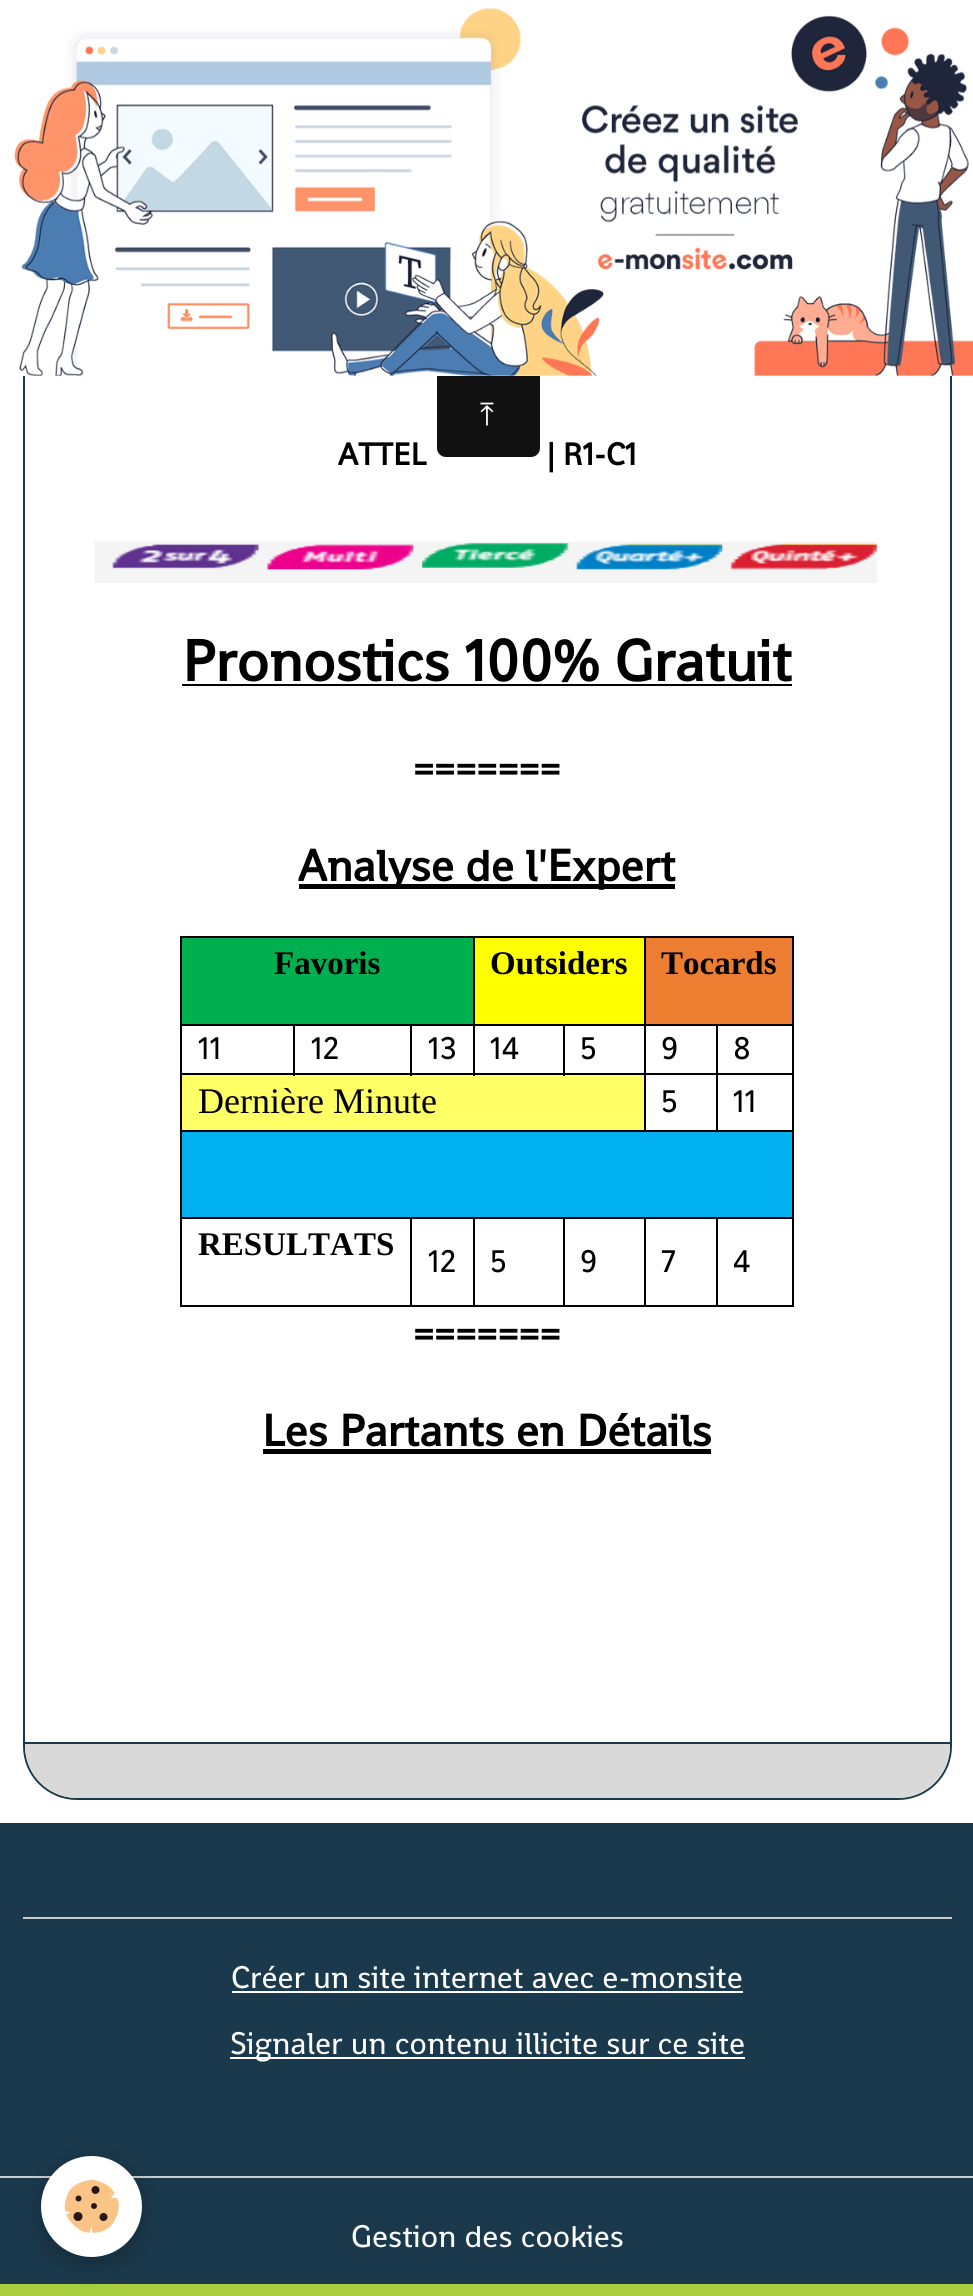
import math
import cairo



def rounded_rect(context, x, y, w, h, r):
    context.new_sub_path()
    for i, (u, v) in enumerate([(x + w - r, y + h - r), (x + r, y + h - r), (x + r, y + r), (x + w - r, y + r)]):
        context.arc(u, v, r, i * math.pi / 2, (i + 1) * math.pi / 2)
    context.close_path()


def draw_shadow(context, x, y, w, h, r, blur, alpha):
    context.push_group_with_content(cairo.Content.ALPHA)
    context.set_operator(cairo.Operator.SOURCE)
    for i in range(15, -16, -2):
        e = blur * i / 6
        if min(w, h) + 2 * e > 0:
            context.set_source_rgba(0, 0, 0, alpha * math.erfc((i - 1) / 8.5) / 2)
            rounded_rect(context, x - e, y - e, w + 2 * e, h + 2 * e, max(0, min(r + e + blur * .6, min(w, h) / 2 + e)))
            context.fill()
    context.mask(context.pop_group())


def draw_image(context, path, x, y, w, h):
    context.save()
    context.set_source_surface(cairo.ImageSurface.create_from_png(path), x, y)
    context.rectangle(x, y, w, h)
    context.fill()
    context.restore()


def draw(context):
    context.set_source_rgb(168 / 255, 206 / 255, 64 / 255)
    context.paint()
    context.set_source_rgb(1, 1, 1)
    context.rectangle(0, 376, 973, 1447)
    context.fill()
    rounded_rect(context, 24, 21, 927, 1778, 53)
    context.set_source_rgb(26 / 255, 57 / 255, 76 / 255)
    context.stroke()
    context.set_source_rgb(1, 1, 1)
    context.rectangle(0, 0, 973, 376)
    context.fill()
    draw_image(context, "images/1.png", 14, 8, 959, 368)
    context.set_source_rgb(17 / 255, 17 / 255, 17 / 255)
    context.new_path()
    context.move_to(437, 376)
    context.line_to(540, 376)
    context.line_to(540, 448)
    context.curve_to(540, 453, 536, 457, 531, 457)
    context.line_to(446, 457)
    context.curve_to(441, 457, 437, 453, 437, 448)
    context.close_path()
    context.fill()
    draw_image(context, "images/2.png", 94, 541, 784, 42)
    context.set_source_rgb(0, 0, 0)
    context.rectangle(182, 684, 610, 2)
    context.fill()
    context.rectangle(299, 884, 376, 5)
    context.fill()
    context.set_source_rgb(0, 176 / 255, 80 / 255)
    context.rectangle(182, 938, 291, 86)
    context.fill()
    context.set_source_rgb(0, 0, 0)
    context.rectangle(180, 936, 614, 2)
    context.fill()
    context.rectangle(792, 1024, 2, 283)
    context.fill()
    context.rectangle(792, 936, 2, 90)
    context.fill()
    context.rectangle(716, 1130, 78, 2)
    context.fill()
    context.rectangle(716, 1073, 2, 59)
    context.fill()
    context.rectangle(716, 1073, 78, 2)
    context.fill()
    context.rectangle(716, 1024, 2, 52)
    context.fill()
    context.rectangle(644, 1130, 74, 2)
    context.fill()
    context.rectangle(644, 1073, 2, 59)
    context.fill()
    context.rectangle(644, 1073, 74, 2)
    context.fill()
    context.rectangle(644, 1024, 2, 52)
    context.fill()
    context.rectangle(644, 1024, 150, 2)
    context.fill()
    context.rectangle(644, 936, 2, 90)
    context.fill()
    context.rectangle(563, 1073, 83, 2)
    context.fill()
    context.set_source_rgb(1, 1, 102 / 255)
    context.rectangle(182, 1075, 462, 55)
    context.fill()
    context.set_source_rgb(0, 0, 0)
    context.rectangle(563, 1024, 2, 52)
    context.fill()
    context.rectangle(473, 1073, 92, 2)
    context.fill()
    context.rectangle(473, 1024, 2, 52)
    context.fill()
    context.rectangle(473, 1024, 173, 2)
    context.fill()
    context.rectangle(473, 936, 2, 90)
    context.fill()
    context.rectangle(410, 1073, 65, 2)
    context.fill()
    context.rectangle(410, 1024, 2, 52)
    context.fill()
    context.rectangle(293, 1073, 119, 2)
    context.fill()
    context.rectangle(293, 1024, 2, 52)
    context.fill()
    context.rectangle(716, 1305, 78, 2)
    context.fill()
    context.rectangle(716, 1217, 2, 90)
    context.fill()
    context.rectangle(644, 1305, 74, 2)
    context.fill()
    context.rectangle(644, 1217, 2, 90)
    context.fill()
    context.rectangle(563, 1305, 83, 2)
    context.fill()
    context.rectangle(563, 1217, 2, 90)
    context.fill()
    context.rectangle(473, 1305, 92, 2)
    context.fill()
    context.rectangle(473, 1217, 2, 90)
    context.fill()
    context.rectangle(410, 1305, 65, 2)
    context.fill()
    context.rectangle(410, 1217, 2, 90)
    context.fill()
    context.rectangle(180, 1305, 232, 2)
    context.fill()
    context.rectangle(180, 1217, 2, 90)
    context.fill()
    context.rectangle(180, 1217, 614, 2)
    context.fill()
    context.rectangle(180, 1130, 2, 90)
    context.fill()
    context.rectangle(180, 1130, 466, 2)
    context.fill()
    context.rectangle(180, 1073, 2, 59)
    context.fill()
    context.rectangle(180, 1073, 115, 2)
    context.fill()
    context.rectangle(180, 1024, 2, 52)
    context.fill()
    context.rectangle(180, 1024, 295, 2)
    context.fill()
    context.rectangle(180, 936, 2, 90)
    context.fill()
    context.set_source_rgb(1, 1, 0)
    context.rectangle(475, 938, 169, 86)
    context.fill()
    context.set_source_rgb(237 / 255, 125 / 255, 49 / 255)
    context.rectangle(646, 938, 146, 86)
    context.fill()
    context.set_source_rgb(0, 176 / 255, 240 / 255)
    context.rectangle(182, 1132, 610, 85)
    context.fill()
    context.set_source_rgb(0, 0, 0)
    context.rectangle(263, 1449, 448, 5)
    context.fill()
    context.set_source_rgb(217 / 255, 217 / 255, 217 / 255)
    context.new_path()
    context.move_to(25, 1742)
    context.line_to(950, 1742)
    context.line_to(950, 1746)
    context.curve_to(950, 1774.5, 926.5, 1798, 898, 1798)
    context.line_to(77, 1798)
    context.curve_to(48.5, 1798, 25, 1774.5, 25, 1746)
    context.close_path()
    context.fill()
    context.set_source_rgb(26 / 255, 57 / 255, 76 / 255)
    context.rectangle(25, 1742, 925, 2)
    context.fill()
    context.rectangle(0, 1823, 973, 461)
    context.fill()
    context.set_source_rgb(204 / 255, 204 / 255, 204 / 255)
    context.rectangle(0, 2176, 973, 2)
    context.fill()
    context.set_source_rgb(0, 0, 0)
    draw_shadow(context, 41, 2162, 101, 102, 50.5, 11, 0.24)
    context.set_source_rgb(1, 1, 1)
    context.arc(91.5, 2206.5, 50.5, 0, 2 * math.pi)
    context.fill()
    draw_image(context, "images/3.png", 64, 2180, 55, 53)
    context.set_source_rgb(204 / 255, 204 / 255, 204 / 255)
    context.rectangle(23, 1917, 929, 2)
    context.fill()
    context.set_source_rgb(1, 1, 1)
    context.rectangle(232, 1991, 511, 2)
    context.fill()
    context.rectangle(230, 2057, 515, 2)
    context.fill()
    context.select_font_face("FreeSerif")
    context.set_font_size(31.5)
    context.move_to(480, 425)
    context.show_text("⤒")
    context.select_font_face("Shanti", cairo.FontSlant.NORMAL, cairo.FontWeight.BOLD)
    context.set_source_rgb(0, 0, 0)
    context.move_to(338, 465)
    context.show_text("ATTEL")
    context.move_to(547, 465)
    context.show_text("| R1-C1")
    context.set_font_size(58.5)
    context.move_to(182, 681)
    context.show_text("Pronostics 100% Gratuit")
    context.set_font_size(36)
    context.move_to(413, 780)
    context.show_text("=======")
    context.set_font_size(45)
    context.move_to(298, 881)
    context.show_text("Analyse de l'Expert")
    context.select_font_face("Liberation Serif", cairo.FontSlant.NORMAL, cairo.FontWeight.BOLD)
    context.set_font_size(33)
    context.move_to(274, 974)
    context.show_text("Favoris")
    context.move_to(490, 974)
    context.show_text("Outsiders")
    context.move_to(661, 974)
    context.show_text("Tocards")
    context.select_font_face("Shanti")
    context.set_font_size(31.5)
    context.move_to(198, 1059)
    context.show_text("11")
    context.move_to(311, 1059)
    context.show_text("12")
    context.move_to(428, 1059)
    context.show_text("13")
    context.move_to(490, 1059)
    context.show_text("14")
    context.move_to(580, 1059)
    context.show_text("5")
    context.move_to(661, 1059)
    context.show_text("9")
    context.move_to(733, 1059)
    context.show_text("8")
    context.select_font_face("Liberation Serif")
    context.set_font_size(36)
    context.move_to(198, 1113)
    context.show_text("Dernière Minute")
    context.select_font_face("Shanti")
    context.set_font_size(31.5)
    context.move_to(661, 1112)
    context.show_text("5")
    context.move_to(733, 1112)
    context.show_text("11")
    context.select_font_face("Liberation Serif", cairo.FontSlant.NORMAL, cairo.FontWeight.BOLD)
    context.set_font_size(33)
    context.move_to(198, 1255)
    context.show_text("RESULTATS")
    context.select_font_face("Shanti")
    context.set_font_size(31.5)
    context.move_to(428, 1272)
    context.show_text("12")
    context.move_to(490, 1272)
    context.show_text("5")
    context.move_to(580, 1272)
    context.show_text("9")
    context.move_to(661, 1272)
    context.show_text("7")
    context.move_to(733, 1272)
    context.show_text("4")
    context.select_font_face("Shanti", cairo.FontSlant.NORMAL, cairo.FontWeight.BOLD)
    context.set_font_size(36)
    context.move_to(413, 1345)
    context.show_text("=======")
    context.set_font_size(45)
    context.move_to(262, 1446)
    context.show_text("Les Partants en Détails")
    context.select_font_face("Shanti")
    context.set_font_size(31.5)
    context.set_source_rgb(1, 1, 1)
    context.move_to(231, 1988)
    context.show_text("Créer un site internet avec e-monsite")
    context.move_to(230, 2054)
    context.show_text("Signaler un contenu illicite sur ce site")
    context.move_to(351, 2247)
    context.show_text("Gestion des cookies")


surface = cairo.ImageSurface(cairo.Format.RGB24, 973, 2296)
context = cairo.Context(surface)
options = cairo.FontOptions()
options.set_hint_metrics(cairo.HintMetrics.OFF)
options.set_hint_style(cairo.HintStyle.NONE)
context.set_font_options(options)
context.set_miter_limit(4)
draw(context)
surface.write_to_png("out.png")
